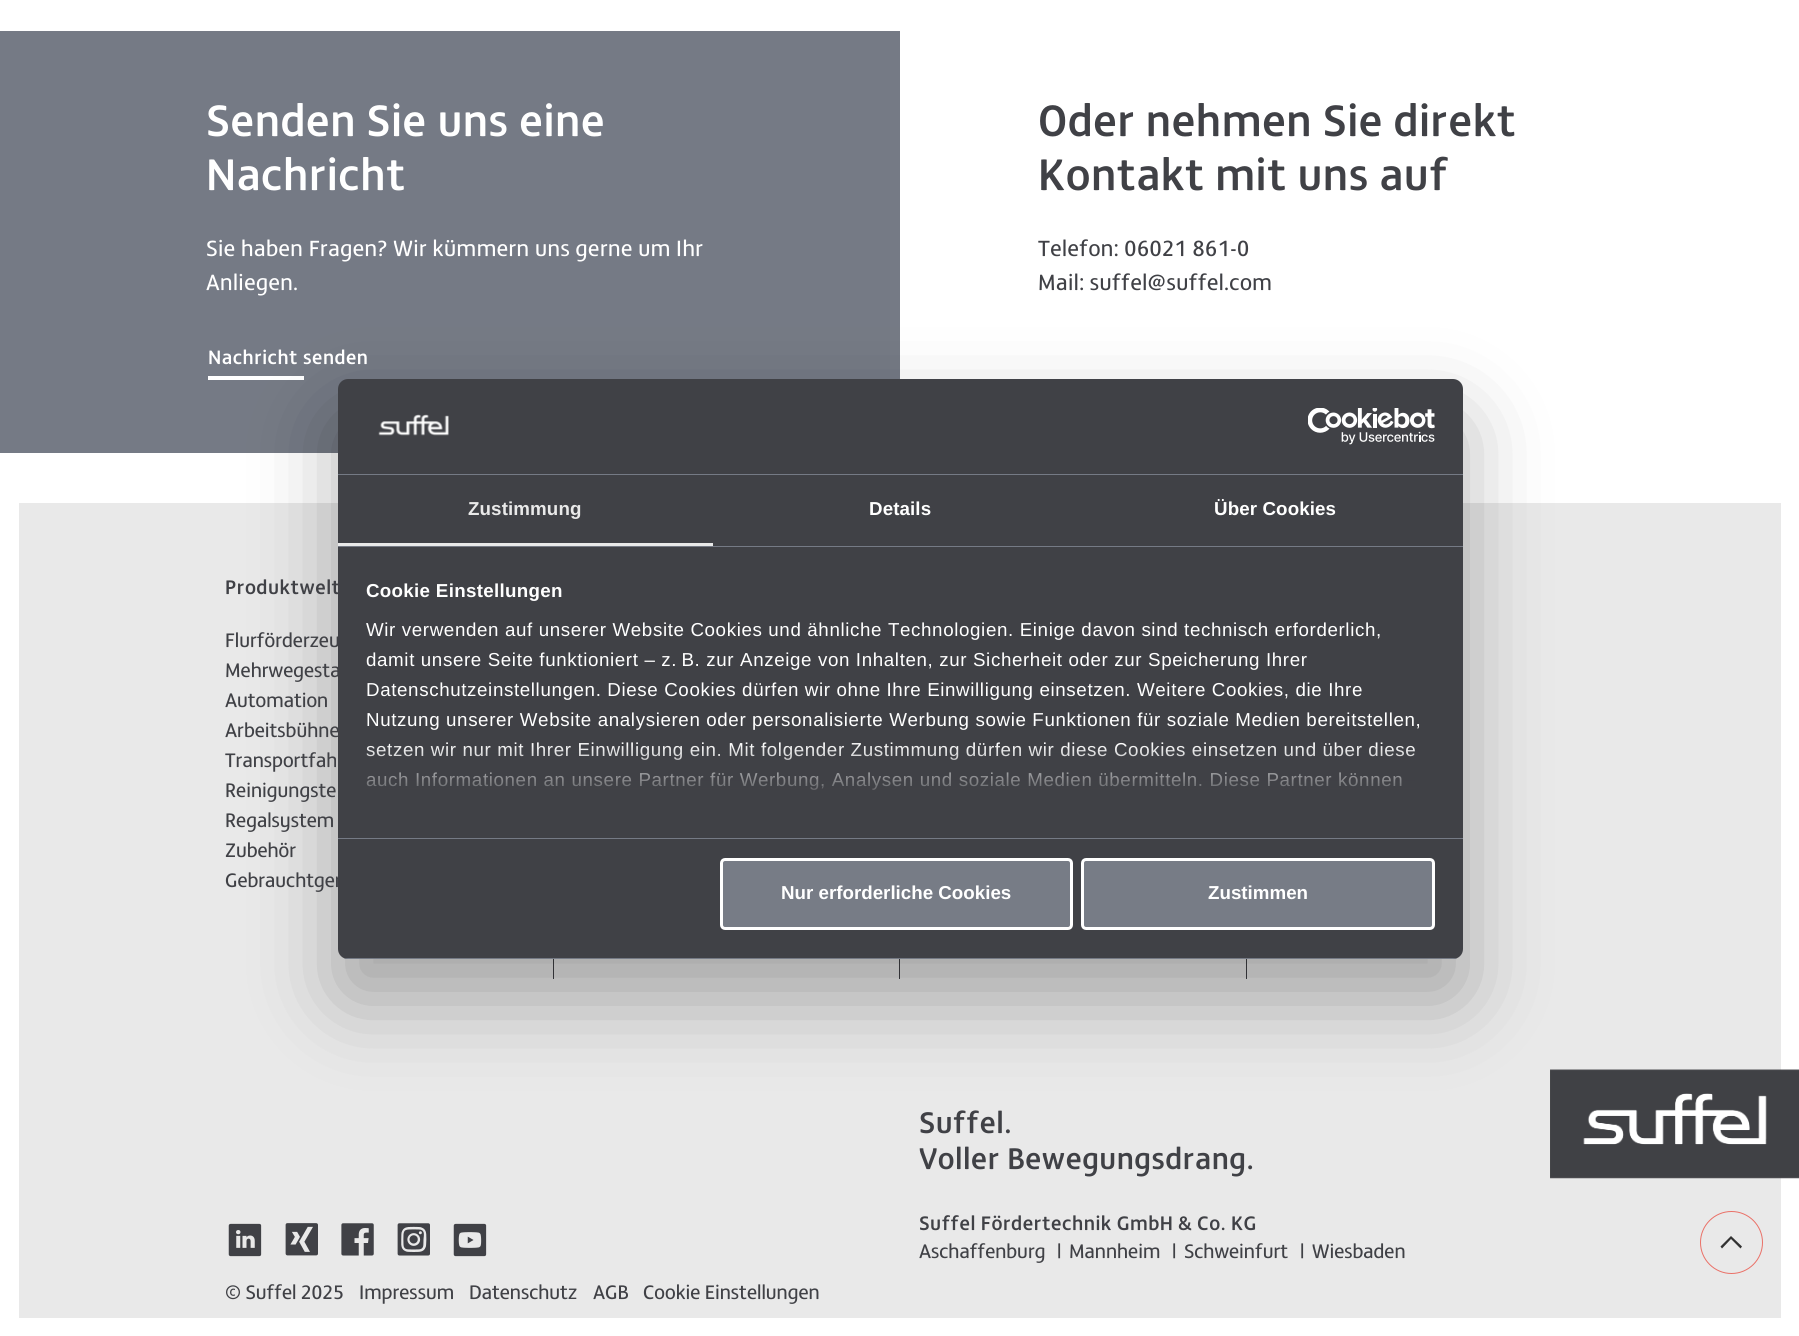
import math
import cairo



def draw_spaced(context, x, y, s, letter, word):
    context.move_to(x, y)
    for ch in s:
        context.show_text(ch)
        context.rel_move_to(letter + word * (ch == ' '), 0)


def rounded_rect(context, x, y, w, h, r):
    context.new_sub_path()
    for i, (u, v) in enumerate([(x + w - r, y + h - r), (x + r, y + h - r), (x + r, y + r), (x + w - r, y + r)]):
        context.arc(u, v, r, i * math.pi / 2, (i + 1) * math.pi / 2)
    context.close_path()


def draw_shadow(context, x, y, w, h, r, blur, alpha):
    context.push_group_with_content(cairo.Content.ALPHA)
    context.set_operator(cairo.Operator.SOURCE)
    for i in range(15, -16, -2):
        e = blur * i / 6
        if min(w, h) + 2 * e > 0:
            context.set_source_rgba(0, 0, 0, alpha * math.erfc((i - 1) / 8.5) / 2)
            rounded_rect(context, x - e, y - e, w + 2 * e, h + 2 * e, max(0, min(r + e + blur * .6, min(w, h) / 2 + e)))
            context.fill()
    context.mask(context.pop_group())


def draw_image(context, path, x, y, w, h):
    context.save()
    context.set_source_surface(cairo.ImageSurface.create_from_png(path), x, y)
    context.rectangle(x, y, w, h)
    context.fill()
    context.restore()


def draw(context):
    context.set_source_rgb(1, 1, 1)
    context.paint()
    context.set_source_rgb(117 / 255, 122 / 255, 133 / 255)
    context.rectangle(0, 31, 900, 422)
    context.fill()
    context.set_source_rgb(1, 1, 1)
    context.rectangle(208, 376, 96, 4)
    context.fill()
    context.set_source_rgb(233 / 255, 233 / 255, 233 / 255)
    context.rectangle(19, 503, 1762, 815)
    context.fill()
    context.set_source_rgb(64 / 255, 65 / 255, 70 / 255)
    context.rectangle(553, 959, 1, 20)
    context.fill()
    context.rectangle(899, 959, 1, 20)
    context.fill()
    context.rectangle(1246, 959, 1, 20)
    context.fill()
    draw_image(context, "images/1.png", 228, 1223, 34, 34)
    draw_image(context, "images/2.png", 285, 1223, 33, 33)
    draw_image(context, "images/3.png", 341, 1223, 33, 33)
    draw_image(context, "images/4.png", 397, 1223, 33, 33)
    draw_image(context, "images/5.png", 453, 1223, 34, 34)
    draw_image(context, "images/6.png", 1550, 1069, 249, 110)
    context.arc(1731.5, 1242.5, 31, 0, 2 * math.pi)
    context.set_source_rgb(234 / 255, 113 / 255, 104 / 255)
    context.set_line_width(1)
    context.stroke()
    context.set_source_rgb(50 / 255, 50 / 255, 50 / 255)
    context.new_path()
    context.move_to(1740.5, 1248.5)
    context.line_to(1731, 1239)
    context.line_to(1722, 1248.5)
    context.line_to(1720.5, 1246.5)
    context.line_to(1731, 1236)
    context.line_to(1742, 1246.5)
    context.close_path()
    context.fill()
    context.set_source_rgb(0, 0, 0)
    draw_shadow(context, 338, 419, 1125, 580, 10, 42.5, 0.3)
    context.set_source_rgb(64 / 255, 65 / 255, 70 / 255)
    rounded_rect(context, 338, 379, 1125, 580, 10)
    context.fill()
    context.set_source_rgb(117 / 255, 122 / 255, 133 / 255)
    context.rectangle(338, 474, 1125, 1)
    context.fill()
    draw_image(context, "images/7.png", 378, 414, 71, 22)
    draw_image(context, "images/8.png", 1308, 408, 127, 37)
    context.rectangle(338, 546, 1125, 1)
    context.fill()
    context.set_source_rgb(233 / 255, 233 / 255, 233 / 255)
    context.rectangle(338, 543, 375, 3)
    context.fill()
    context.set_source_rgb(117 / 255, 122 / 255, 133 / 255)
    context.rectangle(338, 838, 1125, 1)
    context.fill()
    context.save()
    rounded_rect(context, 338, 379, 1125, 580, 10)
    context.clip()
    context.rectangle(338, 958, 1125, 1)
    context.fill()
    context.restore()
    context.set_source_rgb(119 / 255, 124 / 255, 134 / 255)
    rounded_rect(context, 721.5, 859.5, 350, 69, 3.5)
    context.fill_preserve()
    context.set_source_rgb(1, 1, 1)
    context.set_line_width(3)
    context.stroke()
    context.set_source_rgb(119 / 255, 124 / 255, 134 / 255)
    rounded_rect(context, 1082.5, 859.5, 351, 69, 3.5)
    context.fill_preserve()
    context.set_source_rgb(1, 1, 1)
    context.stroke()
    context.select_font_face("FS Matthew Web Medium")
    context.set_font_size(45)
    draw_spaced(context, 206, 136, "Senden Sie uns eine", 0.45, 0)
    draw_spaced(context, 206, 190, "Nachricht", 0.45, 0)
    context.select_font_face("FS Matthew Web")
    context.set_font_size(22.5)
    draw_spaced(context, 206, 256, "Sie haben Fragen? Wir kümmern uns gerne um Ihr", 0.45, 0)
    draw_spaced(context, 206, 290, "Anliegen.", 0.45, 0)
    context.select_font_face("FS Matthew Web Medium")
    context.set_font_size(19.75)
    draw_spaced(context, 208, 364, "Nachricht senden", 0.45, 0)
    context.set_font_size(45)
    context.set_source_rgb(64 / 255, 65 / 255, 70 / 255)
    draw_spaced(context, 1038, 136, "Oder nehmen Sie direkt", 0.45, 0)
    draw_spaced(context, 1038, 190, "Kontakt mit uns auf", 0.45, 0)
    context.select_font_face("FS Matthew Web")
    context.set_font_size(22.5)
    draw_spaced(context, 1038, 256, "Telefon: 06021 861-0", 0.45, 0)
    draw_spaced(context, 1038, 290, "Mail: suffel@suffel.com", 0.45, 0)
    context.select_font_face("FS Matthew Web Medium")
    context.set_font_size(20)
    draw_spaced(context, 225, 594, "Produktwelt", 0.45, 0)
    context.select_font_face("FS Matthew Web")
    context.move_to(225, 647)
    context.show_text("Flurförderzeu")
    context.move_to(225, 677)
    context.show_text("Mehrwegesta")
    context.move_to(225, 707)
    context.show_text("Automation")
    context.move_to(225, 737)
    context.show_text("Arbeitsbühne")
    context.move_to(225, 767)
    context.show_text("Transportfah")
    context.move_to(225, 797)
    context.show_text("Reinigungste")
    context.move_to(225, 827)
    context.show_text("Regalsystem")
    context.move_to(225, 857)
    context.show_text("Zubehör")
    context.move_to(225, 887)
    context.show_text("Gebrauchtger")
    context.select_font_face("FS Matthew Web Medium")
    context.set_font_size(30.5)
    draw_spaced(context, 919, 1133, "Suffel.", 0.45, 0)
    draw_spaced(context, 919, 1169, "Voller Bewegungsdrang.", 0.45, 0)
    context.set_font_size(20)
    draw_spaced(context, 919, 1230, "Suffel Fördertechnik GmbH & Co. KG", 0.45, 0)
    context.select_font_face("FS Matthew Web")
    context.move_to(919, 1258)
    context.show_text("Aschaffenburg")
    context.move_to(1057, 1258)
    context.show_text("|")
    context.move_to(1069, 1258)
    context.show_text("Mannheim")
    context.move_to(1172, 1258)
    context.show_text("|")
    context.move_to(1184, 1258)
    context.show_text("Schweinfurt")
    context.move_to(1300, 1258)
    context.show_text("|")
    context.move_to(1312, 1258)
    context.show_text("Wiesbaden")
    context.move_to(225, 1299)
    context.show_text("© Suffel 2025")
    context.move_to(359, 1299)
    context.show_text("Impressum")
    context.move_to(469, 1299)
    context.show_text("Datenschutz")
    context.move_to(593, 1299)
    context.show_text("AGB")
    context.move_to(643, 1299)
    context.show_text("Cookie Einstellungen")
    context.select_font_face("Liberation Sans", cairo.FontSlant.NORMAL, cairo.FontWeight.BOLD)
    context.set_font_size(18.75)
    context.set_source_rgb(233 / 255, 233 / 255, 233 / 255)
    draw_spaced(context, 468, 515, "Zustimmung", 0.1, 0)
    context.set_source_rgb(1, 1, 1)
    draw_spaced(context, 869, 515, "Details", 0.1, 0)
    draw_spaced(context, 1214, 515, "Über Cookies", 0.1, 0)
    draw_spaced(context, 366, 597, "Cookie Einstellungen", 0.3, 0)
    context.select_font_face("Liberation Sans")
    draw_spaced(context, 366, 636, "Wir verwenden auf unserer Website Cookies und ähnliche Technologien. Einige davon sind technisch erforderlich,", 0.62, 0)
    draw_spaced(context, 366, 666, "damit unsere Seite funktioniert – z. B. zur Anzeige von Inhalten, zur Sicherheit oder zur Speicherung Ihrer", 0.62, 0)
    draw_spaced(context, 366, 696, "Datenschutzeinstellungen. Diese Cookies dürfen wir ohne Ihre Einwilligung einsetzen. Weitere Cookies, die Ihre", 0.62, 0)
    draw_spaced(context, 366, 726, "Nutzung unserer Website analysieren oder personalisierte Werbung sowie Funktionen für soziale Medien bereitstellen,", 0.62, 0)
    draw_spaced(context, 366, 756, "setzen wir nur mit Ihrer Einwilligung ein. Mit folgender Zustimmung dürfen wir diese Cookies einsetzen und über diese", 0.62, 0)
    draw_spaced(context, 366, 786, "auch Informationen an unsere Partner für Werbung, Analysen und soziale Medien übermitteln. Diese Partner können", 0.62, 0)
    gradient = cairo.LinearGradient(888, 837, 888, 743)
    gradient.add_color_stop_rgba(0, 64 / 255, 65 / 255, 70 / 255, 1)
    gradient.add_color_stop_rgba(0.5, 64 / 255, 65 / 255, 70 / 255, 0.8)
    gradient.add_color_stop_rgba(1, 64 / 255, 65 / 255, 70 / 255, 0)
    context.set_source(gradient)
    context.rectangle(366, 744, 1049, 46)
    context.fill()
    context.select_font_face("Liberation Sans", cairo.FontSlant.NORMAL, cairo.FontWeight.BOLD)
    context.set_source_rgb(1, 1, 1)
    context.move_to(781, 899)
    context.show_text("Nur erforderliche Cookies")
    context.move_to(1208, 899)
    context.show_text("Zustimmen")


surface = cairo.ImageSurface(cairo.Format.RGB24, 1799, 1336)
context = cairo.Context(surface)
options = cairo.FontOptions()
options.set_hint_metrics(cairo.HintMetrics.OFF)
options.set_hint_style(cairo.HintStyle.NONE)
context.set_font_options(options)
context.set_miter_limit(4)
draw(context)
surface.write_to_png("out.png")
